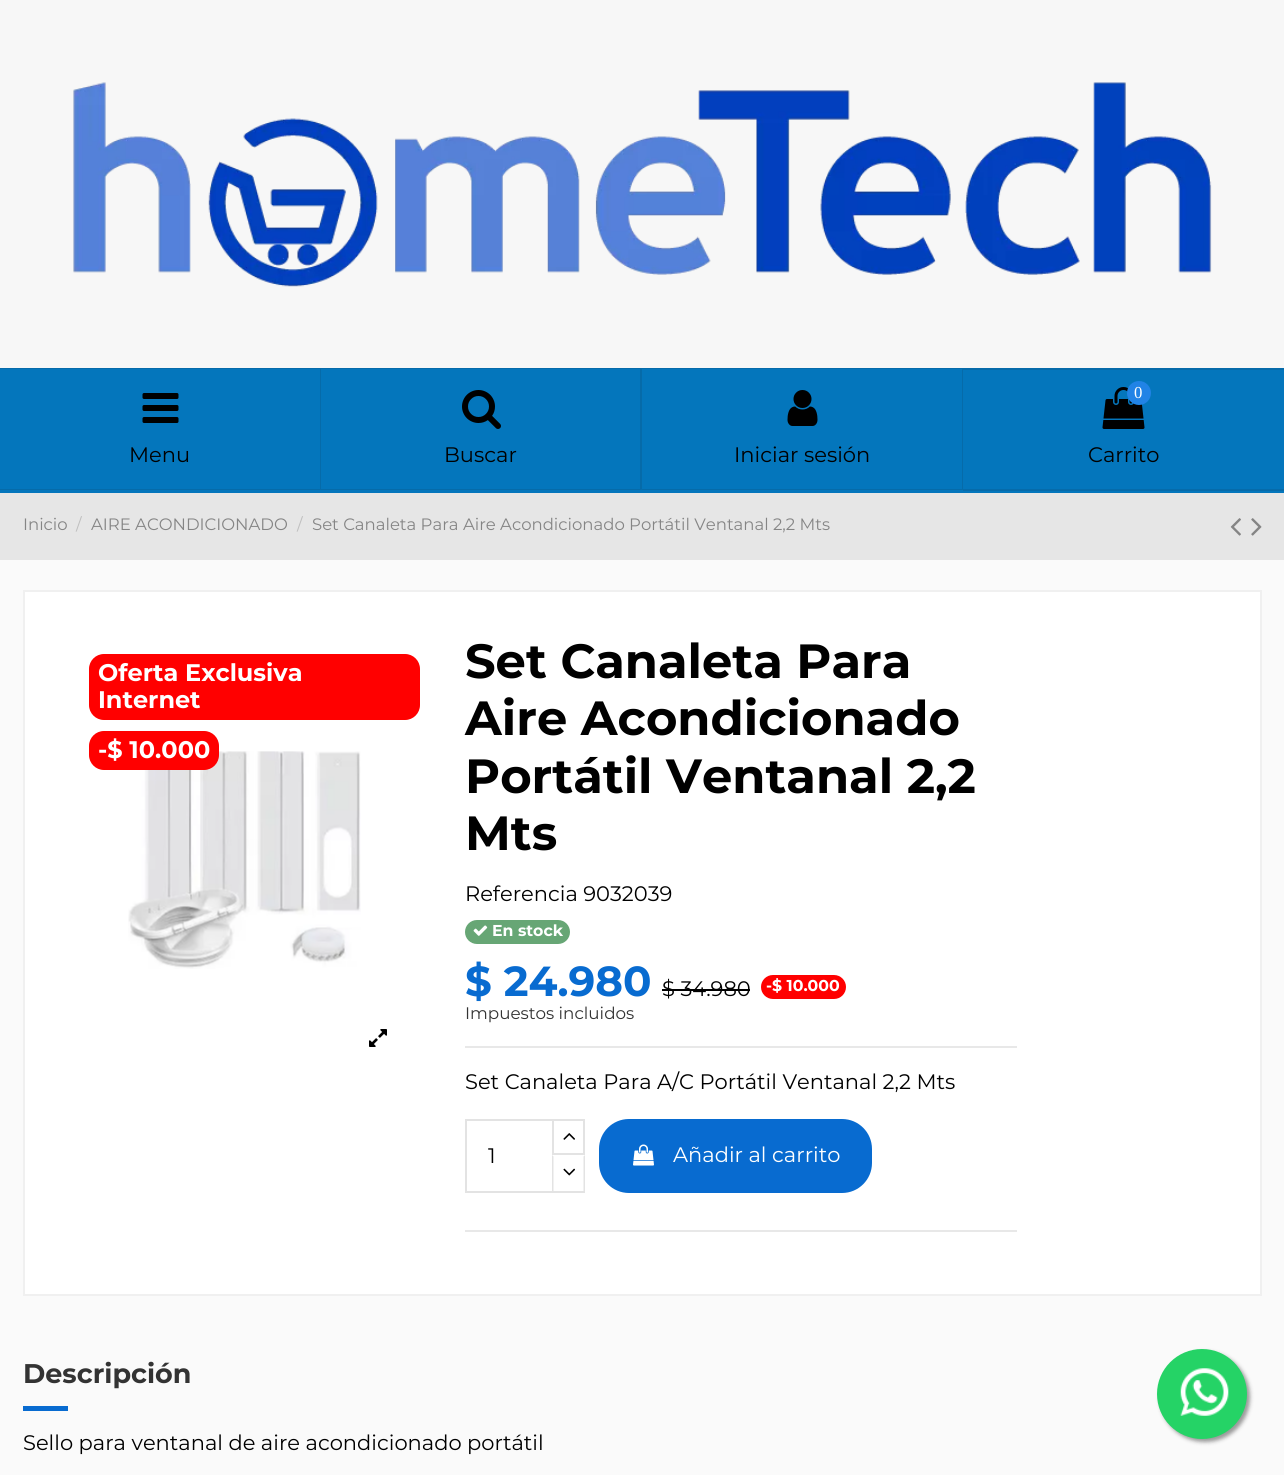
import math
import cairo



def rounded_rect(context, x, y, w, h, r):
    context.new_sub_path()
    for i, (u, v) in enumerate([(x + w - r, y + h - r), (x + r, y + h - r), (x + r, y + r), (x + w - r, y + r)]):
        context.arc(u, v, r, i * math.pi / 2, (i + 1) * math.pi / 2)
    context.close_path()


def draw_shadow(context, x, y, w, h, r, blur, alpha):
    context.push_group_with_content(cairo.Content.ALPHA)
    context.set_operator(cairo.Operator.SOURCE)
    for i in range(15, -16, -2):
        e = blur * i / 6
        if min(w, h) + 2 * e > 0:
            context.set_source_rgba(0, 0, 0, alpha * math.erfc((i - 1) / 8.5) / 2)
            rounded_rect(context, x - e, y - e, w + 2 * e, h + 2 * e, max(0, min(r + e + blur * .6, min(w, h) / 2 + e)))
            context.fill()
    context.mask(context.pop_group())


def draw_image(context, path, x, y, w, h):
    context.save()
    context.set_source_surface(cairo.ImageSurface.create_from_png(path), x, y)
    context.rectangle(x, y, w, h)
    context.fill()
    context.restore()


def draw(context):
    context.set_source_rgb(250 / 255, 250 / 255, 250 / 255)
    context.paint()
    context.set_source_rgb(247 / 255, 247 / 255, 247 / 255)
    context.rectangle(0, 0, 1284, 368)
    context.fill()
    context.set_source_rgb(4 / 255, 118 / 255, 188 / 255)
    context.rectangle(0, 368, 1284, 125)
    context.fill()
    draw_image(context, "images/1.png", 73, 82, 1139, 205)
    context.set_source_rgb(6 / 255, 107 / 255, 170 / 255)
    context.new_path()
    context.move_to(0, 368)
    context.line_to(321, 368)
    context.line_to(320, 369)
    context.line_to(0, 369)
    context.close_path()
    context.fill()
    context.set_source_rgba(21 / 255, 21 / 255, 21 / 255, 0.11)
    context.new_path()
    context.move_to(321, 368)
    context.line_to(321, 490)
    context.line_to(320, 489)
    context.line_to(320, 369)
    context.close_path()
    context.fill()
    context.new_path()
    context.move_to(321, 490)
    context.line_to(0, 490)
    context.line_to(0, 489)
    context.line_to(320, 489)
    context.close_path()
    context.fill()
    draw_image(context, "images/2.png", 142, 393, 37, 30)
    context.set_source_rgb(6 / 255, 107 / 255, 170 / 255)
    context.new_path()
    context.move_to(321, 368)
    context.line_to(642, 368)
    context.line_to(640, 369)
    context.line_to(321, 369)
    context.close_path()
    context.fill()
    context.set_source_rgba(21 / 255, 21 / 255, 21 / 255, 0.11)
    context.new_path()
    context.move_to(642, 368)
    context.line_to(642, 490)
    context.line_to(640, 489)
    context.line_to(640, 369)
    context.close_path()
    context.fill()
    context.new_path()
    context.move_to(642, 490)
    context.line_to(321, 490)
    context.line_to(321, 489)
    context.line_to(640, 489)
    context.close_path()
    context.fill()
    draw_image(context, "images/3.png", 462, 390, 39, 39)
    context.set_source_rgb(6 / 255, 107 / 255, 170 / 255)
    context.new_path()
    context.move_to(642, 368)
    context.line_to(963, 368)
    context.line_to(962, 369)
    context.line_to(642, 369)
    context.close_path()
    context.fill()
    context.set_source_rgba(21 / 255, 21 / 255, 21 / 255, 0.11)
    context.new_path()
    context.move_to(963, 368)
    context.line_to(963, 490)
    context.line_to(962, 489)
    context.line_to(962, 369)
    context.close_path()
    context.fill()
    context.new_path()
    context.move_to(963, 490)
    context.line_to(642, 490)
    context.line_to(642, 489)
    context.line_to(962, 489)
    context.close_path()
    context.fill()
    draw_image(context, "images/4.png", 787, 390, 31, 36)
    context.set_source_rgb(6 / 255, 107 / 255, 170 / 255)
    context.rectangle(963, 368, 321, 2)
    context.fill()
    context.rectangle(963, 489, 321, 2)
    context.fill()
    draw_image(context, "images/5.png", 1102, 387, 43, 42)
    context.set_source_rgb(33 / 255, 131 / 255, 230 / 255)
    context.arc(1139, 393, 12, 0, 2 * math.pi)
    context.fill()
    context.set_source_rgb(230 / 255, 230 / 255, 230 / 255)
    context.rectangle(0, 493, 1284, 67)
    context.fill()
    draw_image(context, "images/6.png", 1230, 518, 11, 18)
    draw_image(context, "images/7.png", 1251, 518, 11, 18)
    context.set_source_rgb(1, 1, 1)
    context.rectangle(24, 591, 1237, 704)
    context.fill_preserve()
    context.set_source_rgb(240 / 255, 240 / 255, 240 / 255)
    context.stroke()
    context.set_source_rgb(1, 0, 0)
    rounded_rect(context, 89, 654, 331, 66, 15)
    context.fill()
    draw_image(context, "images/8.png", 128, 751, 233, 218)
    rounded_rect(context, 89, 731, 130, 39, 15)
    context.fill()
    draw_image(context, "images/9.png", 369, 1029, 18, 18)
    context.set_source_rgb(232 / 255, 232 / 255, 232 / 255)
    context.rectangle(465, 1046, 552, 2)
    context.fill()
    context.set_source_rgb(103 / 255, 166 / 255, 117 / 255)
    rounded_rect(context, 465, 920, 105, 24, 12)
    context.fill()
    draw_image(context, "images/10.png", 473, 925, 15, 11)
    context.set_source_rgb(0, 0, 0)
    context.rectangle(662, 989, 88, 2)
    context.fill()
    context.set_source_rgb(1, 0, 0)
    rounded_rect(context, 761, 975, 85, 24, 12)
    context.fill()
    context.rectangle(466, 1120, 87, 72)
    context.set_source_rgb(227 / 255, 227 / 255, 227 / 255)
    context.stroke()
    context.rectangle(553, 1120, 31, 34)
    context.stroke()
    draw_image(context, "images/11.png", 563, 1133, 12, 7)
    context.set_source_rgb(1, 1, 1)
    context.rectangle(552, 1155, 2, 36)
    context.fill()
    context.set_source_rgb(227 / 255, 227 / 255, 227 / 255)
    context.new_path()
    context.move_to(585, 1155)
    context.line_to(585, 1192.5)
    context.line_to(583.5, 1191)
    context.line_to(583.5, 1156.5)
    context.close_path()
    context.fill()
    context.rectangle(552, 1191, 33, 2)
    context.fill()
    context.new_path()
    context.move_to(552, 1192.5)
    context.line_to(552, 1155)
    context.line_to(553.5, 1156.5)
    context.line_to(553.5, 1191)
    context.close_path()
    context.fill()
    draw_image(context, "images/12.png", 563, 1168, 13, 8)
    context.set_source_rgb(8 / 255, 107 / 255, 208 / 255)
    rounded_rect(context, 599, 1119, 273, 74, 30)
    context.fill()
    draw_image(context, "images/13.png", 633, 1144, 21, 22)
    context.set_source_rgb(232 / 255, 232 / 255, 232 / 255)
    context.rectangle(465, 1230, 552, 2)
    context.fill()
    context.set_source_rgb(8 / 255, 107 / 255, 208 / 255)
    context.rectangle(23, 1406, 45, 5)
    context.fill()
    context.set_source_rgb(153 / 255, 153 / 255, 153 / 255)
    draw_shadow(context, 1160, 1352, 90, 90, 45, 2, 1)
    context.set_source_rgb(37 / 255, 211 / 255, 102 / 255)
    context.arc(1202, 1394, 45, 0, 2 * math.pi)
    context.fill()
    draw_image(context, "images/14.png", 1180, 1368, 49, 48)
    context.select_font_face("Montserrat")
    context.set_font_size(21)
    context.set_source_rgb(0, 0, 0)
    context.move_to(129, 462)
    context.show_text("Menu")
    context.move_to(444, 462)
    context.show_text("Buscar")
    context.move_to(734, 462)
    context.show_text("Iniciar sesión")
    context.select_font_face("Liberation Serif")
    context.set_font_size(16.75)
    context.set_source_rgb(1, 1, 1)
    context.move_to(1134, 398)
    context.show_text("0")
    context.select_font_face("Montserrat")
    context.set_font_size(21)
    context.set_source_rgb(0, 0, 0)
    context.move_to(1088, 462)
    context.show_text("Carrito")
    context.set_font_size(16.5)
    context.set_source_rgb(133 / 255, 133 / 255, 133 / 255)
    context.move_to(23, 530)
    context.show_text("Inicio")
    context.set_source_rgb(191 / 255, 191 / 255, 191 / 255)
    context.move_to(76, 530)
    context.show_text("/")
    context.set_source_rgb(133 / 255, 133 / 255, 133 / 255)
    context.move_to(91, 530)
    context.show_text("AIRE ACONDICIONADO")
    context.set_source_rgb(191 / 255, 191 / 255, 191 / 255)
    context.move_to(297, 530)
    context.show_text("/")
    context.set_source_rgb(133 / 255, 133 / 255, 133 / 255)
    context.move_to(312, 530)
    context.show_text("Set Canaleta Para Aire Acondicionado Portátil Ventanal 2,2 Mts")
    context.select_font_face("Montserrat", cairo.FontSlant.NORMAL, cairo.FontWeight.BOLD)
    context.set_font_size(24)
    context.set_source_rgb(1, 1, 1)
    context.move_to(98, 681)
    context.show_text("Oferta Exclusiva")
    context.move_to(98, 708)
    context.show_text("Internet")
    context.move_to(98, 758)
    context.show_text("-$ 10.000")
    context.set_font_size(48)
    context.set_source_rgb(0, 0, 0)
    context.move_to(465, 678)
    context.show_text("Set Canaleta Para")
    context.move_to(465, 735)
    context.show_text("Aire Acondicionado")
    context.move_to(465, 793)
    context.show_text("Portátil Ventanal 2,2")
    context.move_to(465, 850)
    context.show_text("Mts")
    context.select_font_face("Montserrat")
    context.set_font_size(21)
    context.move_to(465, 901)
    context.show_text("Referencia 9032039")
    context.select_font_face("Montserrat", cairo.FontSlant.NORMAL, cairo.FontWeight.BOLD)
    context.set_font_size(15.75)
    context.set_source_rgb(1, 1, 1)
    context.move_to(492, 936)
    context.show_text("En stock")
    context.set_font_size(42)
    context.set_source_rgb(8 / 255, 107 / 255, 208 / 255)
    context.move_to(465, 996)
    context.show_text("$ 24.980")
    context.select_font_face("Montserrat")
    context.set_font_size(21)
    context.set_source_rgb(0, 0, 0)
    context.move_to(662, 996)
    context.show_text("$ 34.980")
    context.select_font_face("Montserrat", cairo.FontSlant.NORMAL, cairo.FontWeight.BOLD)
    context.set_font_size(15.75)
    context.set_source_rgb(1, 1, 1)
    context.move_to(766, 991)
    context.show_text("-$ 10.000")
    context.select_font_face("Montserrat")
    context.set_font_size(16.75)
    context.set_source_rgb(51 / 255, 51 / 255, 51 / 255)
    context.move_to(465, 1019)
    context.show_text("Impuestos incluidos")
    context.set_font_size(21)
    context.set_source_rgb(0, 0, 0)
    context.move_to(465, 1089)
    context.show_text("Set Canaleta Para A/C Portátil Ventanal 2,2 Mts")
    context.move_to(488, 1163)
    context.show_text("1")
    context.set_source_rgb(1, 1, 1)
    context.move_to(673, 1162)
    context.show_text("Añadir al carrito")
    context.select_font_face("Montserrat", cairo.FontSlant.NORMAL, cairo.FontWeight.BOLD)
    context.set_font_size(27)
    context.set_source_rgb(51 / 255, 51 / 255, 51 / 255)
    context.move_to(23, 1383)
    context.show_text("Descripción")
    context.select_font_face("Montserrat")
    context.set_font_size(21)
    context.set_source_rgb(0, 0, 0)
    context.move_to(23, 1450)
    context.show_text("Sello para ventanal de aire acondicionado portátil")


surface = cairo.ImageSurface(cairo.Format.RGB24, 1284, 1475)
context = cairo.Context(surface)
options = cairo.FontOptions()
options.set_hint_metrics(cairo.HintMetrics.OFF)
options.set_hint_style(cairo.HintStyle.NONE)
context.set_font_options(options)
context.set_miter_limit(4)
draw(context)
surface.write_to_png("out.png")
